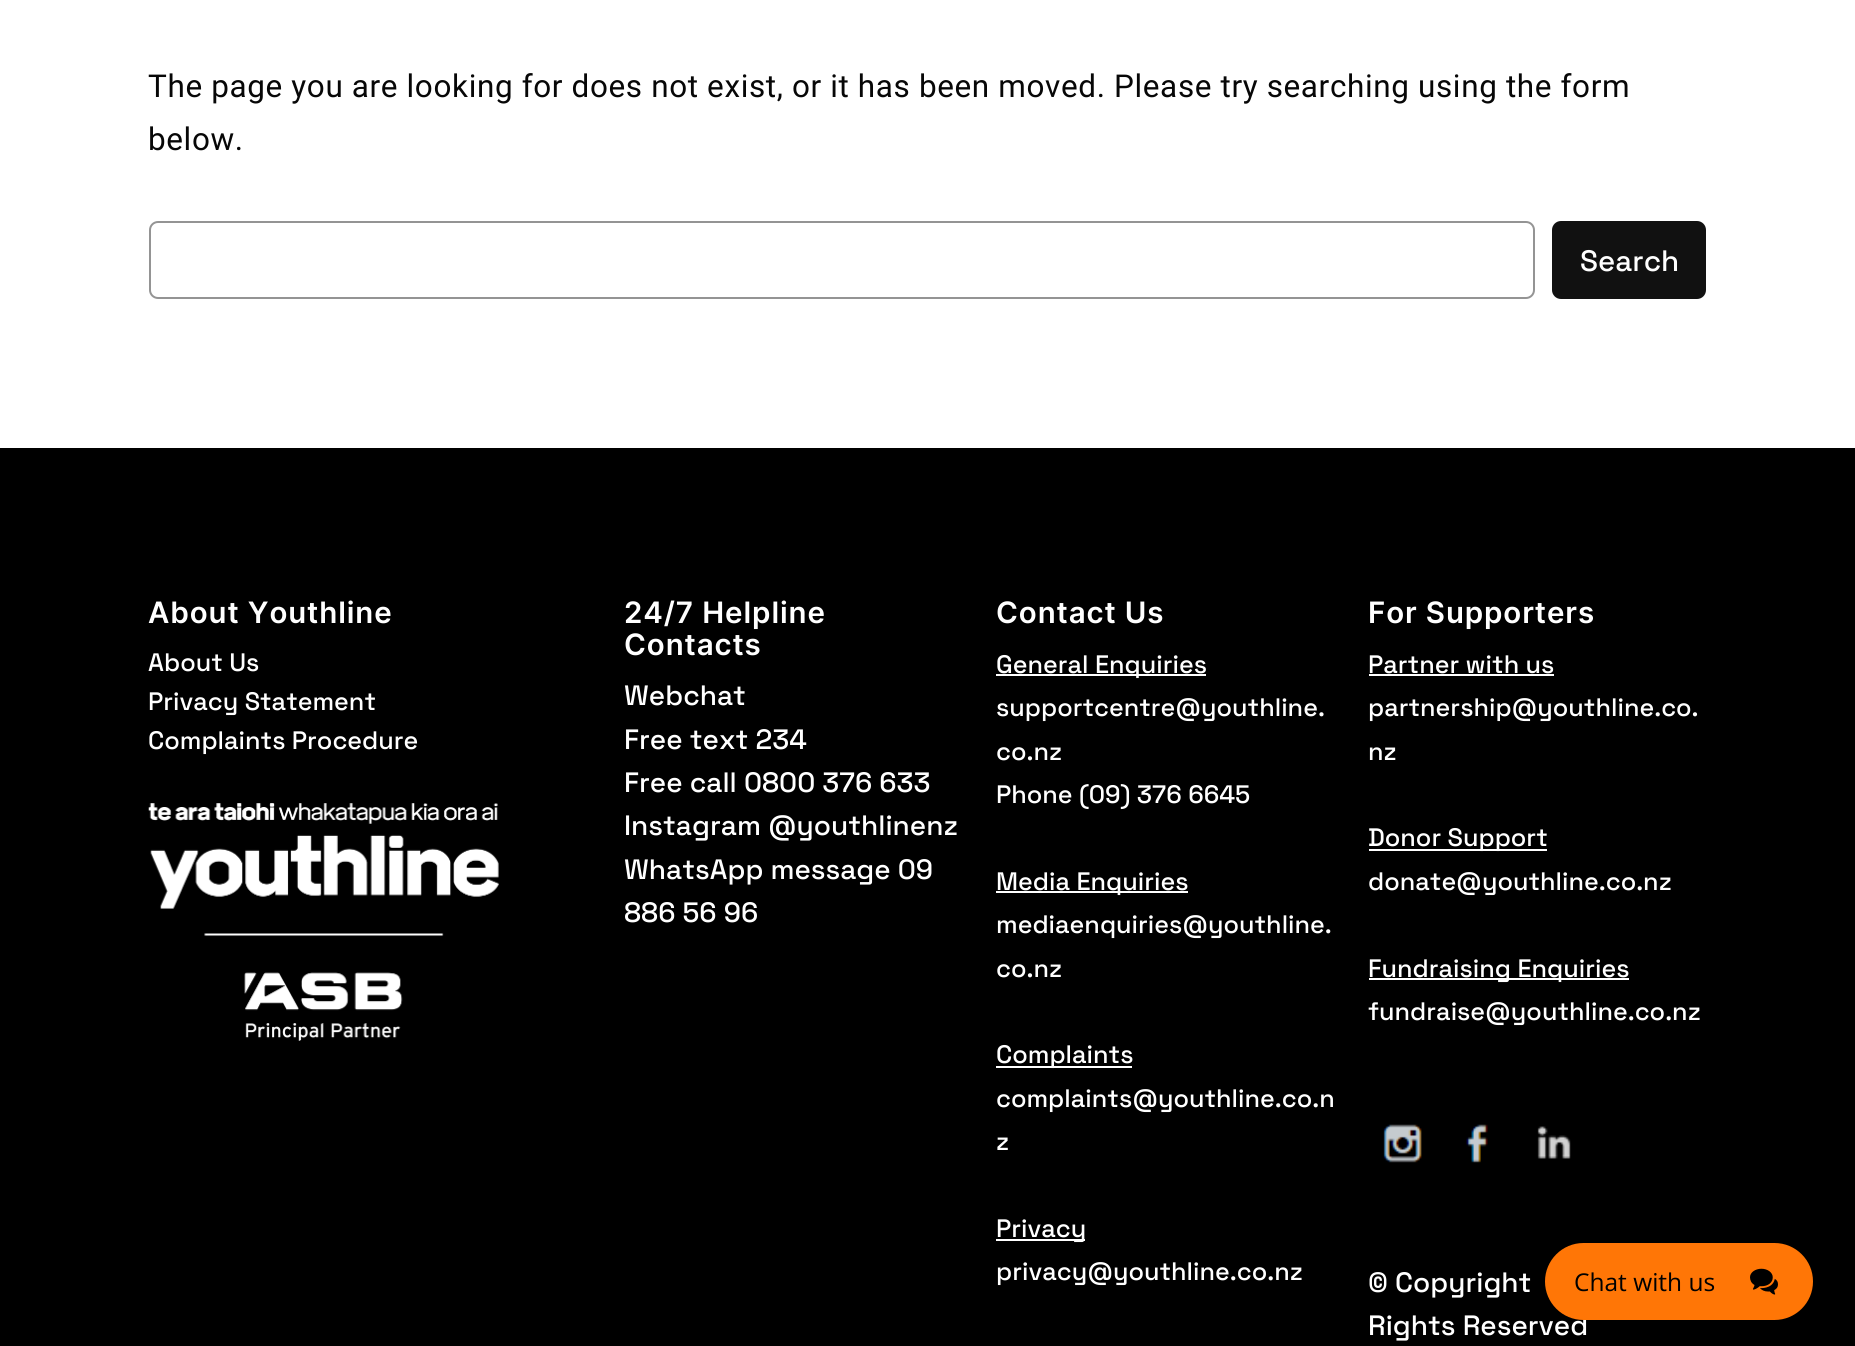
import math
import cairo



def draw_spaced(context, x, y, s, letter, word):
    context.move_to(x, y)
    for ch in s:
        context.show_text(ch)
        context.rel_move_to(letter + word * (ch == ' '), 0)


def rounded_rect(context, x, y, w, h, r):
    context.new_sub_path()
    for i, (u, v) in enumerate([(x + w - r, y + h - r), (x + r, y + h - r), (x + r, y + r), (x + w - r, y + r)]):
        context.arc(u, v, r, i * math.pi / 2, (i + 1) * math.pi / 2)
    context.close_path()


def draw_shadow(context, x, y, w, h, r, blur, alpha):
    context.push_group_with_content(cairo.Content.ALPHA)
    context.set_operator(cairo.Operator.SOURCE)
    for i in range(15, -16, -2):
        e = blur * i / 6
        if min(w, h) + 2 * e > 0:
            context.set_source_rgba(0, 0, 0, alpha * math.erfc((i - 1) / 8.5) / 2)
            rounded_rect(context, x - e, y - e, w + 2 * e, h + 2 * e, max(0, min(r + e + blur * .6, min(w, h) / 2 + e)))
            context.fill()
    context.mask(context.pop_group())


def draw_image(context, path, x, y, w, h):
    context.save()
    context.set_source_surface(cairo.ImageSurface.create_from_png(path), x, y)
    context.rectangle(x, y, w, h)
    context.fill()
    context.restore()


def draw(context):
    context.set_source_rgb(1, 1, 1)
    context.paint()
    rounded_rect(context, 150, 222, 1384, 76, 8)
    context.set_source_rgb(148 / 255, 148 / 255, 148 / 255)
    context.stroke()
    context.set_source_rgb(17 / 255, 17 / 255, 17 / 255)
    rounded_rect(context, 1552, 221, 154, 78, 9)
    context.fill()
    context.set_source_rgb(0, 0, 0)
    context.rectangle(0, 448, 1855, 898)
    context.fill()
    draw_image(context, "images/1.png", 148, 803, 351, 238)
    context.set_source_rgb(1, 1, 1)
    context.rectangle(996, 674, 210, 2)
    context.fill()
    context.rectangle(996, 891, 192, 2)
    context.fill()
    context.rectangle(996, 1066, 136, 2)
    context.fill()
    context.rectangle(996, 1239, 89, 2)
    context.fill()
    context.rectangle(1369, 674, 185, 2)
    context.fill()
    context.rectangle(1369, 849, 178, 2)
    context.fill()
    context.rectangle(1369, 978, 260, 2)
    context.fill()
    draw_image(context, "images/2.png", 1383, 1124, 39, 39)
    draw_image(context, "images/3.png", 1466, 1124, 22, 39)
    draw_image(context, "images/4.png", 1537, 1126, 34, 33)
    context.set_source_rgb(0, 0, 0)
    draw_shadow(context, 1545, 1246, 268, 77, 38.5, 3.5, 0.5)
    context.select_font_face("Roboto")
    context.set_font_size(31.5)
    context.set_source_rgb(7 / 255, 7 / 255, 7 / 255)
    draw_spaced(context, 148, 97, "The page you are looking for does not exist, or it has been moved. Please try searching using the form", 0.63, 0)
    draw_spaced(context, 148, 150, "below.", 0.63, 0)
    context.select_font_face("Space Grotesk Medium")
    context.set_font_size(29.5)
    context.set_source_rgb(1, 1, 1)
    context.move_to(1580, 271)
    context.show_text("Search")
    context.select_font_face("Inter SemiBold")
    draw_spaced(context, 148, 623, "About Youthline", 0.9, 0)
    context.select_font_face("Space Grotesk Medium")
    context.set_font_size(25.25)
    context.move_to(148, 671)
    context.show_text("About Us")
    context.move_to(148, 710)
    context.show_text("Privacy Statement")
    context.move_to(148, 749)
    context.show_text("Complaints Procedure")
    context.select_font_face("Inter SemiBold")
    context.set_font_size(29.5)
    draw_spaced(context, 624, 623, "24/7 Helpline", 0.9, 0)
    draw_spaced(context, 624, 655, "Contacts", 0.9, 0)
    context.select_font_face("Space Grotesk Medium")
    context.set_font_size(28)
    context.move_to(624, 705)
    context.show_text("Webchat")
    context.move_to(624, 749)
    context.show_text("Free text 234")
    context.move_to(624, 792)
    context.show_text("Free call 0800 376 633")
    context.move_to(624, 835)
    context.show_text("Instagram @youthlinenz")
    context.move_to(624, 879)
    context.show_text("WhatsApp message 09")
    context.move_to(624, 922)
    context.show_text("886 56 96")
    context.select_font_face("Inter SemiBold")
    context.set_font_size(29.5)
    draw_spaced(context, 996, 623, "Contact Us", 0.9, 0)
    context.select_font_face("Space Grotesk Medium")
    context.set_font_size(25.25)
    context.move_to(996, 673)
    context.show_text("General Enquiries")
    context.move_to(996, 716)
    context.show_text("supportcentre@youthline.")
    context.move_to(996, 760)
    context.show_text("co.nz")
    context.move_to(996, 803)
    context.show_text("Phone (09) 376 6645")
    context.move_to(996, 890)
    context.show_text("Media Enquiries")
    context.move_to(996, 933)
    context.show_text("mediaenquiries@youthline.")
    context.move_to(996, 977)
    context.show_text("co.nz")
    context.move_to(996, 1063)
    context.show_text("Complaints")
    context.move_to(996, 1107)
    context.show_text("complaints@youthline.co.n")
    context.move_to(996, 1150)
    context.show_text("z")
    context.move_to(996, 1237)
    context.show_text("Privacy")
    context.move_to(996, 1280)
    context.show_text("privacy@youthline.co.nz")
    context.select_font_face("Inter SemiBold")
    context.set_font_size(29.5)
    draw_spaced(context, 1368, 623, "For Supporters", 0.9, 0)
    context.select_font_face("Space Grotesk Medium")
    context.set_font_size(25.25)
    context.move_to(1368, 673)
    context.show_text("Partner with us")
    context.move_to(1368, 716)
    context.show_text("partnership@youthline.co.")
    context.move_to(1368, 760)
    context.show_text("nz")
    context.move_to(1368, 846)
    context.show_text("Donor Support")
    context.move_to(1368, 890)
    context.show_text("donate@youthline.co.nz")
    context.move_to(1368, 977)
    context.show_text("Fundraising Enquiries")
    context.move_to(1368, 1020)
    context.show_text("fundraise@youthline.co.nz")
    context.set_font_size(28)
    context.move_to(1368, 1292)
    context.show_text("© Copyright")
    context.move_to(1368, 1335)
    context.show_text("Rights Reserved")
    context.set_source_rgb(1, 118 / 255, 6 / 255)
    rounded_rect(context, 1545, 1243, 268, 77, 38.5)
    context.fill()
    context.select_font_face("Open Sans")
    context.set_font_size(24.5)
    context.set_source_rgb(0, 0, 0)
    context.move_to(1574, 1291)
    context.show_text("Chat with us")
    draw_image(context, "images/5.png", 1750, 1268, 28, 27)


surface = cairo.ImageSurface(cairo.Format.RGB24, 1855, 1346)
context = cairo.Context(surface)
options = cairo.FontOptions()
options.set_hint_metrics(cairo.HintMetrics.OFF)
options.set_hint_style(cairo.HintStyle.NONE)
context.set_font_options(options)
context.set_miter_limit(4)
draw(context)
surface.write_to_png("out.png")
